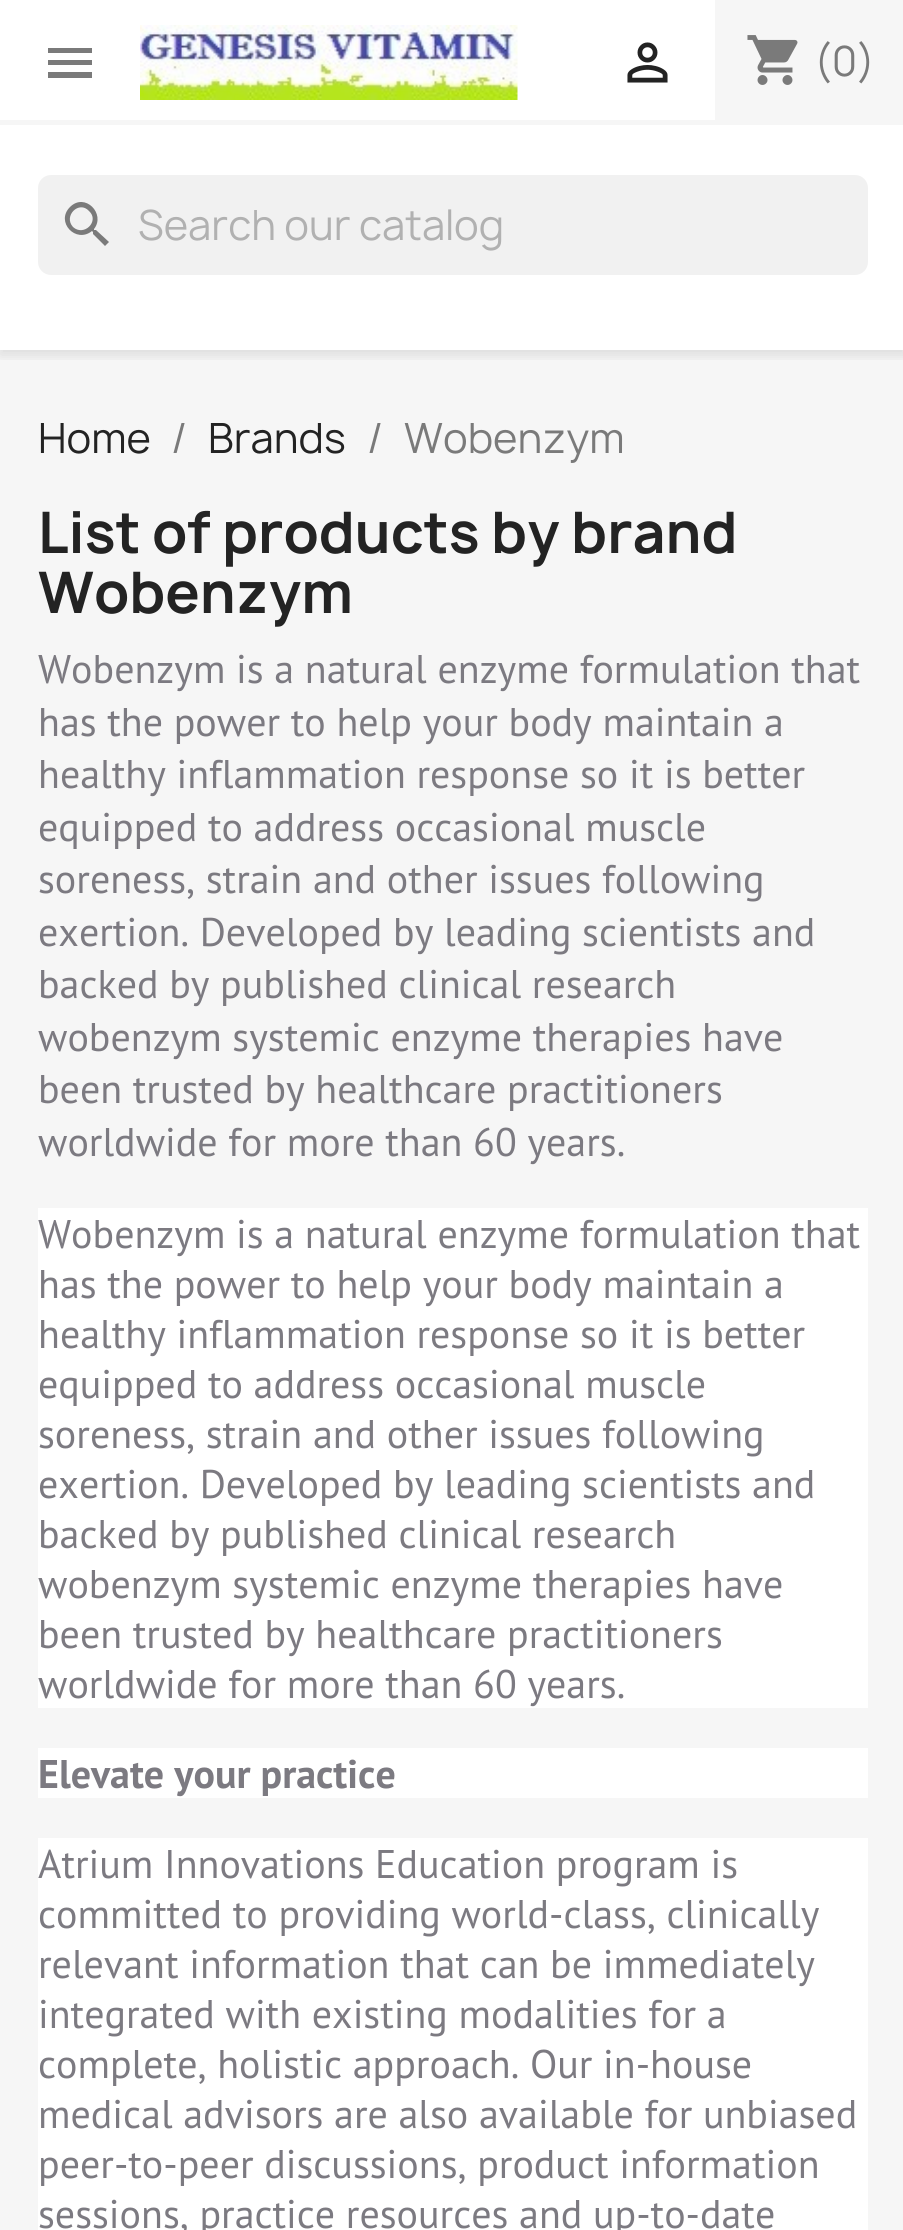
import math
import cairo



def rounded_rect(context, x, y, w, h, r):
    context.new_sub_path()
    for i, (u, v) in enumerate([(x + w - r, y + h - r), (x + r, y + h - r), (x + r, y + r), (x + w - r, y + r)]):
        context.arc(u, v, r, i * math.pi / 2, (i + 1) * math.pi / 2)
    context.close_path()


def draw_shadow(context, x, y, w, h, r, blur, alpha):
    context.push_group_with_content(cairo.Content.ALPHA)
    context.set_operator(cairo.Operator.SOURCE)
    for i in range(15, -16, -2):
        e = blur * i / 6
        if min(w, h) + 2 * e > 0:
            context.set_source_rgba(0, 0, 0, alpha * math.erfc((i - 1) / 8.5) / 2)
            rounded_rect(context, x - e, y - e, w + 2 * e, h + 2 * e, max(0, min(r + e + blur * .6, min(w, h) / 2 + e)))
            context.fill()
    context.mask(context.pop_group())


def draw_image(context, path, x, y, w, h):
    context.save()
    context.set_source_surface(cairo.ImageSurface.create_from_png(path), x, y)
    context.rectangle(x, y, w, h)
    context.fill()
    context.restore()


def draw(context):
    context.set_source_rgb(1, 1, 1)
    context.paint()
    context.set_source_rgb(246 / 255, 246 / 255, 246 / 255)
    context.rectangle(0, 350, 903, 1880)
    context.fill()
    context.save()
    context.rectangle(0, 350, 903, 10)
    context.clip()
    context.set_source_rgb(0, 0, 0)
    draw_shadow(context, 0, 5, 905, 350, 0, 6, 0.11)
    context.restore()
    context.rectangle(0, 120, 903, 5)
    context.fill()
    context.set_source_rgb(122 / 255, 122 / 255, 122 / 255)
    context.new_path()
    context.move_to(48, 48)
    context.line_to(92, 48)
    context.line_to(92, 53)
    context.line_to(48, 53)
    context.close_path()
    context.move_to(48, 65)
    context.line_to(48, 60)
    context.line_to(92, 60)
    context.line_to(92, 65)
    context.close_path()
    context.move_to(48, 78)
    context.line_to(48, 72)
    context.line_to(92, 72)
    context.line_to(92, 78)
    context.close_path()
    context.fill()
    draw_image(context, "images/1.png", 140, 25, 378, 75)
    draw_image(context, "images/2.png", 627, 42, 41, 41)
    context.set_source_rgb(246 / 255, 246 / 255, 246 / 255)
    context.rectangle(715, 0, 188, 120)
    context.fill()
    draw_image(context, "images/3.png", 747, 35, 51, 50)
    context.set_source_rgb(241 / 255, 241 / 255, 241 / 255)
    rounded_rect(context, 38, 175, 830, 100, 13)
    context.fill()
    context.set_source_rgb(122 / 255, 122 / 255, 122 / 255)
    context.new_path()
    context.move_to(73, 227)
    context.curve_to(84, 237, 100, 221, 89, 211)
    context.curve_to(79, 200, 63, 216, 73, 227)
    context.close_path()
    context.move_to(96, 230)
    context.line_to(109, 242)
    context.line_to(105, 246)
    context.line_to(93, 234)
    context.line_to(93, 232)
    context.line_to(92, 231)
    context.curve_to(76, 244, 55, 222, 70, 207)
    context.curve_to(85, 192, 106, 214, 94, 229)
    context.line_to(94, 230)
    context.close_path()
    context.fill()
    context.set_source_rgb(1, 1, 1)
    context.rectangle(38, 1208, 830, 500)
    context.fill()
    context.rectangle(38, 1748, 830, 50)
    context.fill()
    context.rectangle(38, 1838, 830, 392)
    context.fill()
    context.select_font_face("Manrope")
    context.set_font_size(40)
    context.set_source_rgb(122 / 255, 122 / 255, 122 / 255)
    context.move_to(814, 76)
    context.show_text("(0)")
    context.set_source_rgb(177 / 255, 177 / 255, 177 / 255)
    context.move_to(138, 240)
    context.show_text("Search our catalog")
    context.set_source_rgb(35 / 255, 35 / 255, 35 / 255)
    context.move_to(38, 453)
    context.show_text("Home")
    context.set_source_rgb(122 / 255, 122 / 255, 122 / 255)
    context.move_to(171, 453)
    context.show_text("/")
    context.set_source_rgb(35 / 255, 35 / 255, 35 / 255)
    context.move_to(208, 453)
    context.show_text("Brands")
    context.set_source_rgb(122 / 255, 122 / 255, 122 / 255)
    context.move_to(367, 453)
    context.show_text("/")
    context.move_to(404, 453)
    context.show_text("Wobenzym")
    context.select_font_face("Manrope", cairo.FontSlant.NORMAL, cairo.FontWeight.BOLD)
    context.set_font_size(55)
    context.set_source_rgb(35 / 255, 35 / 255, 35 / 255)
    context.move_to(38, 553)
    context.show_text("List of products by brand")
    context.move_to(38, 613)
    context.show_text("Wobenzym")
    context.select_font_face("PT Sans")
    context.set_font_size(40)
    context.set_source_rgb(124 / 255, 122 / 255, 129 / 255)
    context.move_to(38, 683)
    context.show_text("Wobenzym is a natural enzyme formulation that")
    context.move_to(38, 736)
    context.show_text("has the power to help your body maintain a")
    context.move_to(38, 788)
    context.show_text("healthy inflammation response so it is better")
    context.move_to(38, 841)
    context.show_text("equipped to address occasional muscle")
    context.move_to(38, 893)
    context.show_text("soreness, strain and other issues following")
    context.move_to(38, 946)
    context.show_text("exertion. Developed by leading scientists and")
    context.move_to(38, 998)
    context.show_text("backed by published clinical research")
    context.move_to(38, 1051)
    context.show_text("wobenzym systemic enzyme therapies have")
    context.move_to(38, 1103)
    context.show_text("been trusted by healthcare practitioners")
    context.move_to(38, 1156)
    context.show_text("worldwide for more than 60 years.")
    context.move_to(38, 1248)
    context.show_text("Wobenzym is a natural enzyme formulation that")
    context.move_to(38, 1298)
    context.show_text("has the power to help your body maintain a")
    context.move_to(38, 1348)
    context.show_text("healthy inflammation response so it is better")
    context.move_to(38, 1398)
    context.show_text("equipped to address occasional muscle")
    context.move_to(38, 1448)
    context.show_text("soreness, strain and other issues following")
    context.move_to(38, 1498)
    context.show_text("exertion. Developed by leading scientists and")
    context.move_to(38, 1548)
    context.show_text("backed by published clinical research")
    context.move_to(38, 1598)
    context.show_text("wobenzym systemic enzyme therapies have")
    context.move_to(38, 1648)
    context.show_text("been trusted by healthcare practitioners")
    context.move_to(38, 1698)
    context.show_text("worldwide for more than 60 years.")
    context.select_font_face("PT Sans", cairo.FontSlant.NORMAL, cairo.FontWeight.BOLD)
    context.move_to(38, 1788)
    context.show_text("Elevate your practice")
    context.select_font_face("PT Sans")
    context.move_to(38, 1878)
    context.show_text("Atrium Innovations Education program is")
    context.move_to(38, 1928)
    context.show_text("committed to providing world-class, clinically")
    context.move_to(38, 1978)
    context.show_text("relevant information that can be immediately")
    context.move_to(38, 2028)
    context.show_text("integrated with existing modalities for a")
    context.move_to(38, 2078)
    context.show_text("complete, holistic approach. Our in-house")
    context.move_to(38, 2128)
    context.show_text("medical advisors are also available for unbiased")
    context.move_to(38, 2178)
    context.show_text("peer-to-peer discussions, product information")
    context.move_to(38, 2228)
    context.show_text("sessions, practice resources and up-to-date")


surface = cairo.ImageSurface(cairo.Format.RGB24, 903, 2230)
context = cairo.Context(surface)
options = cairo.FontOptions()
options.set_hint_metrics(cairo.HintMetrics.OFF)
options.set_hint_style(cairo.HintStyle.NONE)
context.set_font_options(options)
context.set_miter_limit(4)
draw(context)
surface.write_to_png("out.png")
